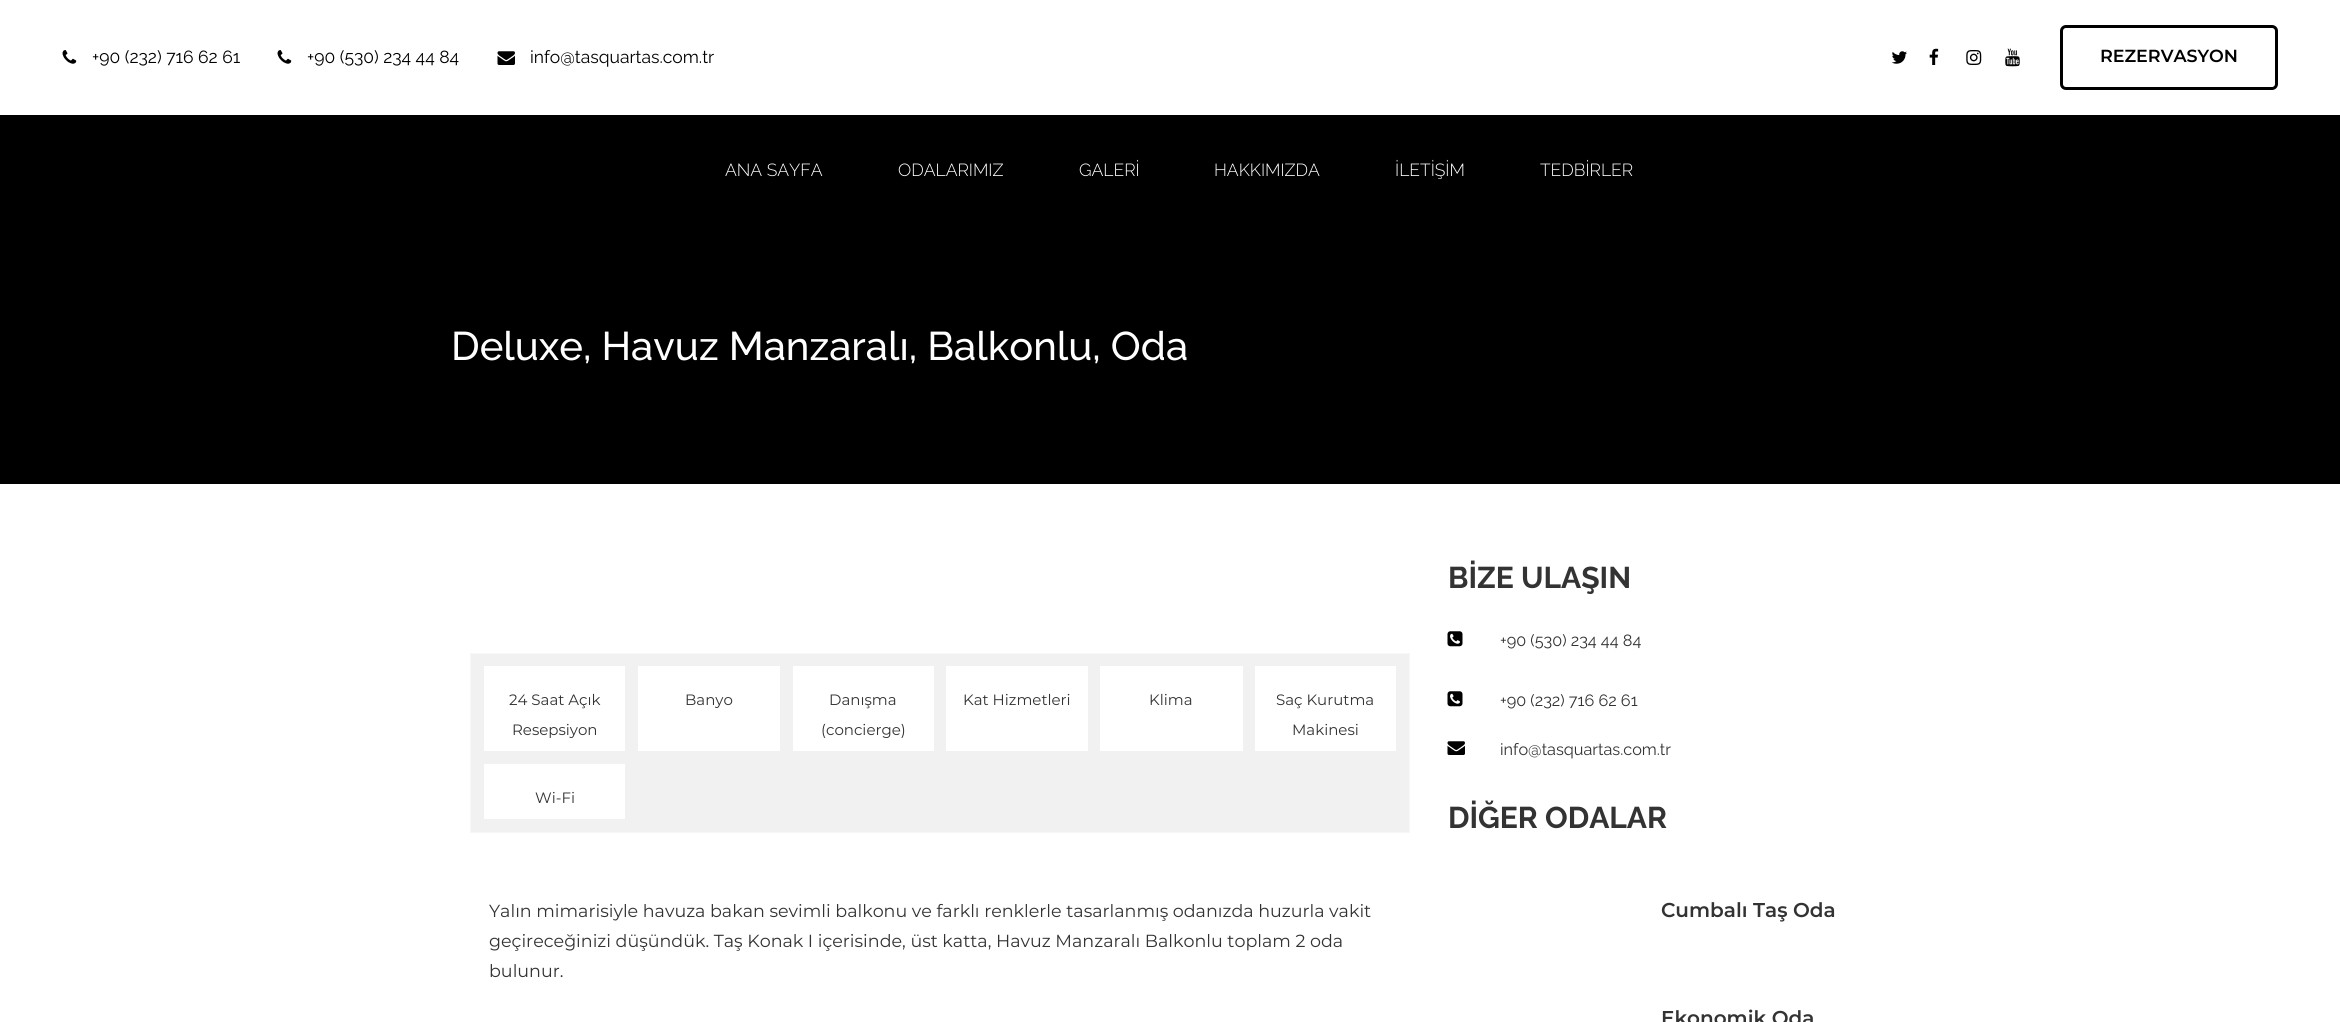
import math
import cairo



def rounded_rect(context, x, y, w, h, r):
    context.new_sub_path()
    for i, (u, v) in enumerate([(x + w - r, y + h - r), (x + r, y + h - r), (x + r, y + r), (x + w - r, y + r)]):
        context.arc(u, v, r, i * math.pi / 2, (i + 1) * math.pi / 2)
    context.close_path()


def draw_image(context, path, x, y, w, h):
    context.save()
    context.set_source_surface(cairo.ImageSurface.create_from_png(path), x, y)
    context.rectangle(x, y, w, h)
    context.fill()
    context.restore()


def draw(context):
    context.set_source_rgb(1, 1, 1)
    context.paint()
    draw_image(context, "images/1.png", 62, 50, 15, 14)
    draw_image(context, "images/1.png", 277, 50, 15, 14)
    draw_image(context, "images/2.png", 497, 51, 18, 14)
    draw_image(context, "images/3.png", 1891, 51, 16, 13)
    draw_image(context, "images/4.png", 1929, 48, 10, 17)
    draw_image(context, "images/5.png", 1966, 50, 16, 15)
    draw_image(context, "images/6.png", 2005, 48, 15, 19)
    rounded_rect(context, 2061.5, 26.5, 215, 62, 4.5)
    context.set_source_rgb(0, 0, 0)
    context.set_line_width(3)
    context.stroke()
    context.rectangle(0, 115, 2340, 369)
    context.fill()
    context.set_source_rgb(241 / 255, 241 / 255, 241 / 255)
    context.rectangle(470.5, 653.5, 939, 179)
    context.fill_preserve()
    context.set_source_rgb(247 / 255, 247 / 255, 247 / 255)
    context.set_line_width(1)
    context.stroke()
    context.set_source_rgb(1, 1, 1)
    context.rectangle(484, 666, 141, 85)
    context.fill()
    context.rectangle(638, 666, 142, 85)
    context.fill()
    context.rectangle(793, 666, 141, 85)
    context.fill()
    context.rectangle(946, 666, 142, 85)
    context.fill()
    context.rectangle(1100, 666, 143, 85)
    context.fill()
    context.rectangle(1255, 666, 141, 85)
    context.fill()
    context.rectangle(484, 764, 141, 55)
    context.fill()
    draw_image(context, "images/7.png", 1447, 631, 16, 16)
    draw_image(context, "images/7.png", 1447, 691, 16, 16)
    draw_image(context, "images/8.png", 1447, 741, 18, 14)
    context.select_font_face("Raleway")
    context.set_font_size(17.5)
    context.set_source_rgb(0, 0, 0)
    context.move_to(92, 63)
    context.show_text("+90 (232) 716 62 61")
    context.move_to(307, 63)
    context.show_text("+90 (530) 234 44 84")
    context.move_to(530, 63)
    context.show_text("info@tasquartas.com.tr")
    context.select_font_face("Montserrat SemiBold")
    context.move_to(2100, 62)
    context.show_text("REZERVASYON")
    context.select_font_face("Raleway Light")
    context.set_source_rgb(1, 1, 1)
    context.move_to(725, 176)
    context.show_text("ANA SAYFA")
    context.move_to(898, 176)
    context.show_text("ODALARIMIZ")
    context.move_to(1079, 176)
    context.show_text("GALERİ")
    context.move_to(1214, 176)
    context.show_text("HAKKIMIZDA")
    context.move_to(1395, 176)
    context.show_text("İLETİŞİM")
    context.move_to(1540, 176)
    context.show_text("TEDBİRLER")
    context.select_font_face("Raleway Medium")
    context.set_font_size(40)
    context.move_to(451, 360)
    context.show_text("Deluxe, Havuz Manzaralı, Balkonlu, Oda")
    context.select_font_face("Montserrat")
    context.set_font_size(15)
    context.set_source_rgb(51 / 255, 51 / 255, 51 / 255)
    context.move_to(509, 705)
    context.show_text("24 Saat Açık")
    context.move_to(512, 735)
    context.show_text("Resepsiyon")
    context.move_to(685, 705)
    context.show_text("Banyo")
    context.move_to(829, 705)
    context.show_text("Danışma")
    context.move_to(821, 735)
    context.show_text("(concierge)")
    context.move_to(963, 705)
    context.show_text("Kat Hizmetleri")
    context.move_to(1149, 705)
    context.show_text("Klima")
    context.move_to(1276, 705)
    context.show_text("Saç Kurutma")
    context.move_to(1292, 735)
    context.show_text("Makinesi")
    context.move_to(535, 803)
    context.show_text("Wi-Fi")
    context.set_font_size(17.5)
    context.move_to(489, 917)
    context.show_text("Yalın mimarisiyle havuza bakan sevimli balkonu ve farklı renklerle tasarlanmış odanızda huzurla vakit")
    context.move_to(489, 947)
    context.show_text("geçireceğinizi düşündük. Taş Konak I içerisinde, üst katta, Havuz Manzaralı Balkonlu toplam 2 oda")
    context.move_to(489, 977)
    context.show_text("bulunur.")
    context.select_font_face("Raleway", cairo.FontSlant.NORMAL, cairo.FontWeight.BOLD)
    context.set_font_size(30)
    context.move_to(1448, 588)
    context.show_text("BİZE ULAŞIN")
    context.select_font_face("Raleway")
    context.set_font_size(16.25)
    context.move_to(1500, 646)
    context.show_text("+90 (530) 234 44 84")
    context.move_to(1500, 706)
    context.show_text("+90 (232) 716 62 61")
    context.move_to(1500, 755)
    context.show_text("info@tasquartas.com.tr")
    context.select_font_face("Raleway", cairo.FontSlant.NORMAL, cairo.FontWeight.BOLD)
    context.set_font_size(30)
    context.move_to(1448, 828)
    context.show_text("DİĞER ODALAR")
    context.select_font_face("Montserrat SemiBold")
    context.set_font_size(20)
    context.move_to(1661, 917)
    context.show_text("Cumbalı Taş Oda")
    context.move_to(1661, 1025)
    context.show_text("Ekonomik Oda")


surface = cairo.ImageSurface(cairo.Format.RGB24, 2340, 1022)
context = cairo.Context(surface)
options = cairo.FontOptions()
options.set_hint_metrics(cairo.HintMetrics.OFF)
options.set_hint_style(cairo.HintStyle.NONE)
context.set_font_options(options)
context.set_miter_limit(4)
draw(context)
surface.write_to_png("out.png")
